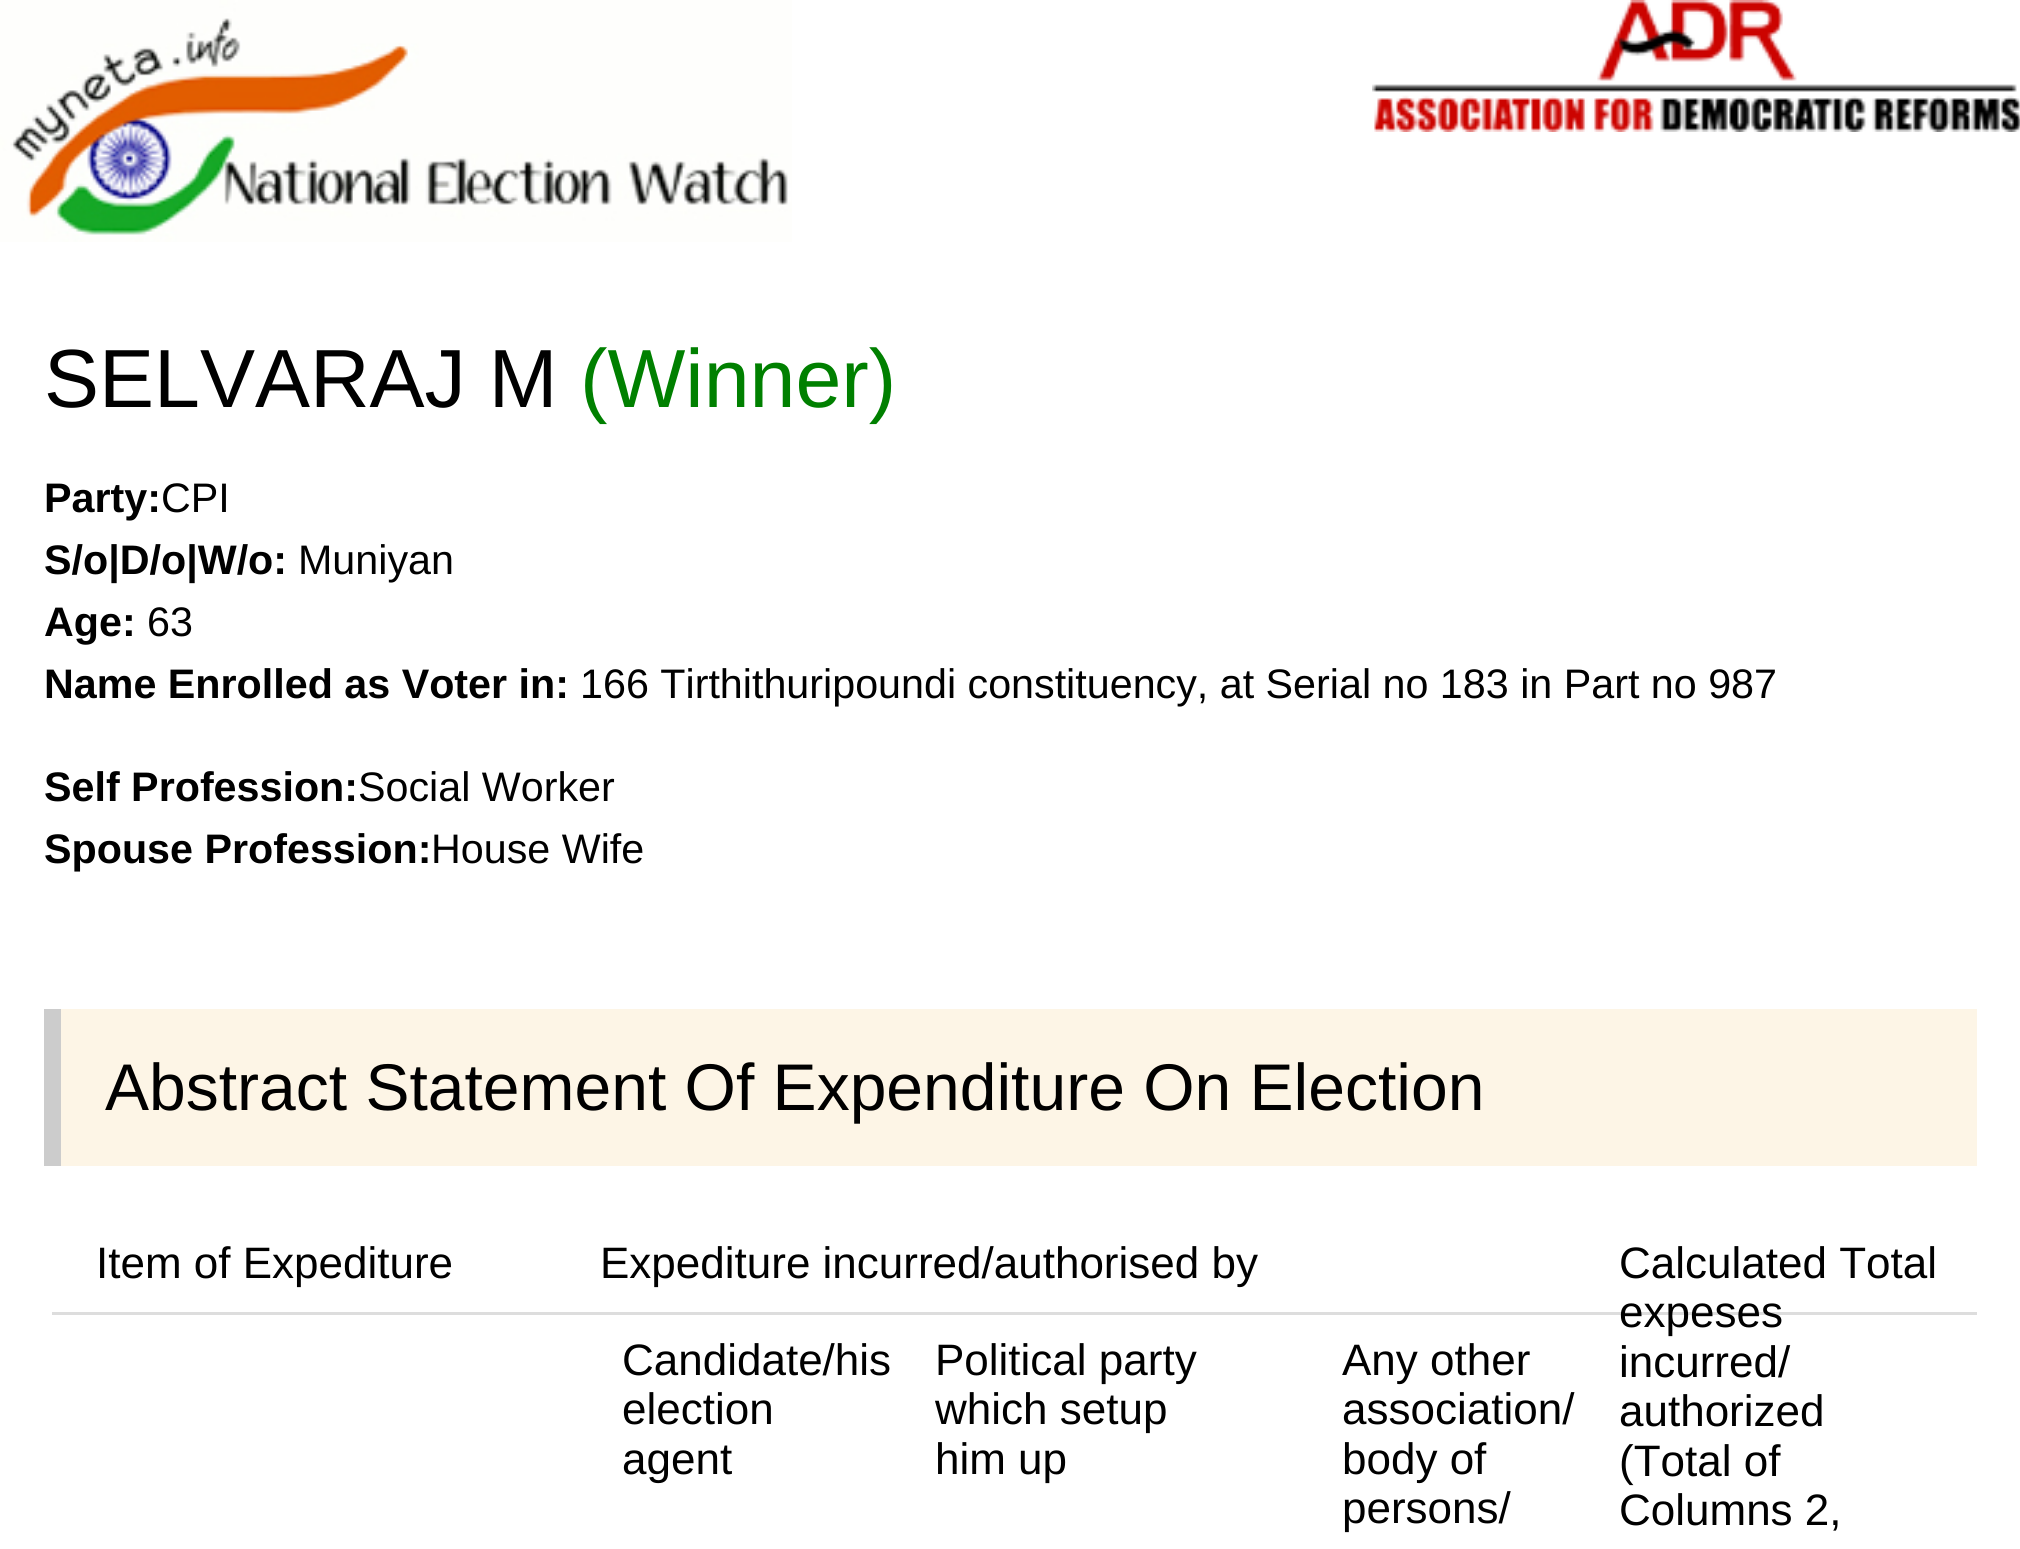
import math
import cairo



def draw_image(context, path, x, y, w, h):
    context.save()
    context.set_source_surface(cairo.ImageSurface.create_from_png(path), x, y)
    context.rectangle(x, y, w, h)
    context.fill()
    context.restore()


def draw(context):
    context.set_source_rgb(1, 1, 1)
    context.paint()
    draw_image(context, "images/1.png", 0, 0, 792, 242)
    draw_image(context, "images/2.png", 1372, 0, 648, 132)
    context.set_source_rgb(253 / 255, 245 / 255, 230 / 255)
    context.rectangle(61, 1009, 1916, 157)
    context.fill()
    context.set_source_rgb(204 / 255, 204 / 255, 204 / 255)
    context.rectangle(44, 1009, 17, 157)
    context.fill()
    context.set_source_rgb(221 / 255, 221 / 255, 221 / 255)
    context.rectangle(52, 1312, 1925, 3)
    context.fill()
    context.select_font_face("Liberation Sans")
    context.set_font_size(82.5)
    context.set_source_rgb(0, 0, 0)
    context.move_to(44, 407)
    context.show_text("SELVARAJ M")
    context.set_source_rgb(0, 128 / 255, 0)
    context.move_to(580, 407)
    context.show_text("(Winner)")
    context.select_font_face("Liberation Sans", cairo.FontSlant.NORMAL, cairo.FontWeight.BOLD)
    context.set_font_size(41.25)
    context.set_source_rgb(0, 0, 0)
    context.move_to(44, 512)
    context.show_text("Party:")
    context.select_font_face("Liberation Sans")
    context.move_to(161, 512)
    context.show_text("CPI")
    context.select_font_face("Liberation Sans", cairo.FontSlant.NORMAL, cairo.FontWeight.BOLD)
    context.move_to(44, 574)
    context.show_text("S/o|D/o|W/o:")
    context.select_font_face("Liberation Sans")
    context.move_to(298, 574)
    context.show_text("Muniyan")
    context.select_font_face("Liberation Sans", cairo.FontSlant.NORMAL, cairo.FontWeight.BOLD)
    context.move_to(44, 636)
    context.show_text("Age:")
    context.select_font_face("Liberation Sans")
    context.move_to(147, 636)
    context.show_text("63")
    context.select_font_face("Liberation Sans", cairo.FontSlant.NORMAL, cairo.FontWeight.BOLD)
    context.move_to(44, 698)
    context.show_text("Name Enrolled as Voter in:")
    context.select_font_face("Liberation Sans")
    context.move_to(580, 698)
    context.show_text("166 Tirthithuripoundi constituency, at Serial no 183 in Part no 987")
    context.select_font_face("Liberation Sans", cairo.FontSlant.NORMAL, cairo.FontWeight.BOLD)
    context.move_to(44, 801)
    context.show_text("Self Profession:")
    context.select_font_face("Liberation Sans")
    context.move_to(358, 801)
    context.show_text("Social Worker")
    context.select_font_face("Liberation Sans", cairo.FontSlant.NORMAL, cairo.FontWeight.BOLD)
    context.move_to(44, 863)
    context.show_text("Spouse Profession:")
    context.select_font_face("Liberation Sans")
    context.move_to(431, 863)
    context.show_text("House Wife")
    context.set_font_size(66)
    context.move_to(105, 1110)
    context.show_text("Abstract Statement Of Expenditure On Election")
    context.set_font_size(44)
    context.move_to(96, 1278)
    context.show_text("Item of Expediture")
    context.move_to(600, 1278)
    context.show_text("Expediture incurred/authorised by")
    context.move_to(1619, 1278)
    context.show_text("Calculated Total")
    context.move_to(1619, 1327)
    context.show_text("expeses")
    context.move_to(1619, 1377)
    context.show_text("incurred/")
    context.move_to(1619, 1426)
    context.show_text("authorized")
    context.move_to(1619, 1476)
    context.show_text("(Total of")
    context.move_to(1619, 1525)
    context.show_text("Columns 2,")
    context.move_to(622, 1375)
    context.show_text("Candidate/his")
    context.move_to(622, 1424)
    context.show_text("election")
    context.move_to(622, 1474)
    context.show_text("agent")
    context.move_to(935, 1375)
    context.show_text("Political party")
    context.move_to(935, 1424)
    context.show_text("which setup")
    context.move_to(935, 1474)
    context.show_text("him up")
    context.move_to(1342, 1375)
    context.show_text("Any other")
    context.move_to(1342, 1424)
    context.show_text("association/")
    context.move_to(1342, 1474)
    context.show_text("body of")
    context.move_to(1342, 1523)
    context.show_text("persons/")


surface = cairo.ImageSurface(cairo.Format.RGB24, 2020, 1549)
context = cairo.Context(surface)
options = cairo.FontOptions()
options.set_hint_metrics(cairo.HintMetrics.OFF)
options.set_hint_style(cairo.HintStyle.NONE)
context.set_font_options(options)
context.set_miter_limit(4)
draw(context)
surface.write_to_png("out.png")
